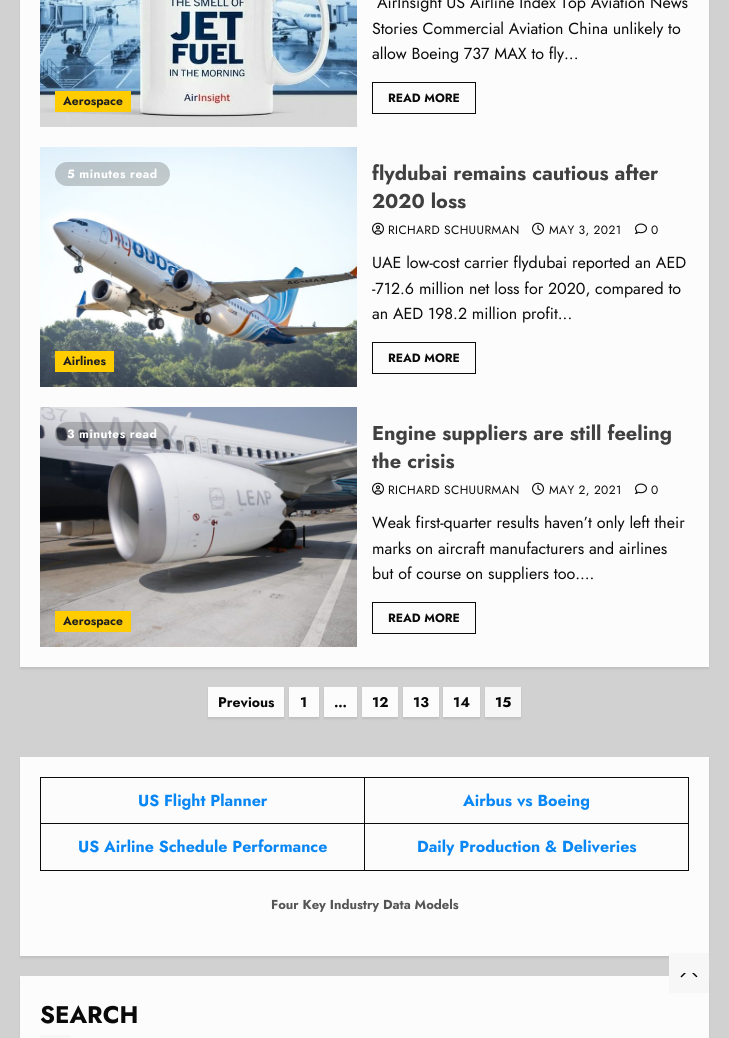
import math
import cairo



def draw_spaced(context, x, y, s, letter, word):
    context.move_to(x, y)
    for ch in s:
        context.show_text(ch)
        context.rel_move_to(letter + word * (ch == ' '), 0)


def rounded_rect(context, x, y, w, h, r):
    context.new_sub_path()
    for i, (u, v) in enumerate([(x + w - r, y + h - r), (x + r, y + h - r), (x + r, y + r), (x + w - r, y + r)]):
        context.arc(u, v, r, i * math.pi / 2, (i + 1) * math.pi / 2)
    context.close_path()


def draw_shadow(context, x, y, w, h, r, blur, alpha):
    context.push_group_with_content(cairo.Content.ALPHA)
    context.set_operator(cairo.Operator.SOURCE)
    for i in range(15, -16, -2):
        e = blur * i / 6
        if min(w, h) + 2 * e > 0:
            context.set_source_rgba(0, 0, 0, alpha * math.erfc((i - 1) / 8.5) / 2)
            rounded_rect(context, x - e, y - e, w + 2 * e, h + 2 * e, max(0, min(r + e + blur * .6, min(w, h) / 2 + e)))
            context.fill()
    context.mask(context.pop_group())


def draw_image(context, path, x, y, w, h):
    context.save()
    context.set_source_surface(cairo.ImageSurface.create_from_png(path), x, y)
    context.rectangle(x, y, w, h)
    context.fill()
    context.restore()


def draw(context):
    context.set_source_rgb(209 / 255, 209 / 255, 209 / 255)
    context.paint()
    context.set_source_rgb(0, 0, 0)
    draw_shadow(context, 20, -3, 689, 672, 0, 1, 0.08)
    context.set_source_rgb(252 / 255, 252 / 255, 252 / 255)
    context.rectangle(20, 0, 689, 667)
    context.fill()
    draw_image(context, "images/1.png", 40, 0, 317, 127)
    context.set_source_rgb(1, 204 / 255, 0)
    context.rectangle(55, 91, 76, 21)
    context.fill()
    context.rectangle(372.5, 82.5, 103, 31)
    context.set_source_rgb(10 / 255, 10 / 255, 10 / 255)
    context.set_line_width(1)
    context.stroke()
    draw_image(context, "images/2.png", 40, 147, 317, 240)
    context.set_source_rgba(0, 0, 0, 0.2)
    rounded_rect(context, 55, 162, 115, 24, 12)
    context.fill()
    context.set_source_rgb(1, 204 / 255, 0)
    context.rectangle(55, 351, 59, 21)
    context.fill()
    draw_image(context, "images/3.png", 372, 222, 12, 13)
    draw_image(context, "images/4.png", 532, 222, 12, 13)
    draw_image(context, "images/5.png", 635, 223, 12, 11)
    context.rectangle(372.5, 342.5, 103, 31)
    context.set_source_rgb(10 / 255, 10 / 255, 10 / 255)
    context.stroke()
    draw_image(context, "images/6.png", 40, 407, 317, 240)
    context.set_source_rgba(0, 0, 0, 0.2)
    rounded_rect(context, 55, 422, 114, 24, 12)
    context.fill()
    context.set_source_rgb(1, 204 / 255, 0)
    context.rectangle(55, 611, 76, 21)
    context.fill()
    draw_image(context, "images/3.png", 372, 482, 12, 13)
    draw_image(context, "images/4.png", 532, 482, 12, 13)
    draw_image(context, "images/5.png", 635, 483, 12, 11)
    context.rectangle(372.5, 602.5, 103, 31)
    context.set_source_rgb(10 / 255, 10 / 255, 10 / 255)
    context.stroke()
    context.set_source_rgb(0, 0, 0)
    draw_shadow(context, 208, 689, 76, 30, 0, 1, 0.08)
    context.set_source_rgb(252 / 255, 252 / 255, 252 / 255)
    context.rectangle(208, 687, 76, 30)
    context.fill()
    context.set_source_rgb(0, 0, 0)
    draw_shadow(context, 289, 689, 30, 30, 0, 1, 0.08)
    context.set_source_rgb(252 / 255, 252 / 255, 252 / 255)
    context.rectangle(289, 687, 30, 30)
    context.fill()
    context.set_source_rgb(0, 0, 0)
    draw_shadow(context, 324, 689, 33, 30, 0, 1, 0.08)
    context.set_source_rgb(252 / 255, 252 / 255, 252 / 255)
    context.rectangle(324, 687, 33, 30)
    context.fill()
    context.set_source_rgb(0, 0, 0)
    draw_shadow(context, 362, 689, 36, 30, 0, 1, 0.08)
    context.set_source_rgb(252 / 255, 252 / 255, 252 / 255)
    context.rectangle(362, 687, 36, 30)
    context.fill()
    context.set_source_rgb(0, 0, 0)
    draw_shadow(context, 403, 689, 36, 30, 0, 1, 0.08)
    context.set_source_rgb(252 / 255, 252 / 255, 252 / 255)
    context.rectangle(403, 687, 36, 30)
    context.fill()
    context.set_source_rgb(0, 0, 0)
    draw_shadow(context, 443, 689, 37, 30, 0, 1, 0.08)
    context.set_source_rgb(252 / 255, 252 / 255, 252 / 255)
    context.rectangle(443, 687, 37, 30)
    context.fill()
    context.set_source_rgb(0, 0, 0)
    draw_shadow(context, 485, 689, 36, 30, 0, 1, 0.08)
    context.set_source_rgb(247 / 255, 247 / 255, 247 / 255)
    context.rectangle(485, 687, 36, 30)
    context.fill()
    context.set_source_rgb(0, 0, 0)
    draw_shadow(context, 20, 759, 689, 199, 0, 1, 0.08)
    context.set_source_rgb(252 / 255, 252 / 255, 252 / 255)
    context.rectangle(20, 757, 689, 199)
    context.fill()
    context.set_source_rgb(10 / 255, 10 / 255, 10 / 255)
    context.rectangle(364, 777, 325, 1)
    context.fill()
    context.rectangle(364, 823, 325, 1)
    context.fill()
    context.rectangle(688, 823, 1, 48)
    context.fill()
    context.rectangle(364, 870, 325, 1)
    context.fill()
    context.rectangle(364, 823, 1, 48)
    context.fill()
    context.rectangle(40, 823, 325, 1)
    context.fill()
    context.rectangle(364, 777, 1, 47)
    context.fill()
    context.rectangle(40, 777, 325, 1)
    context.fill()
    context.rectangle(40, 870, 325, 1)
    context.fill()
    context.rectangle(40, 823, 1, 48)
    context.fill()
    context.rectangle(40, 777, 1, 47)
    context.fill()
    context.rectangle(688, 777, 1, 47)
    context.fill()
    context.set_source_rgb(0, 0, 0)
    draw_shadow(context, 20, 978, 689, 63, 0, 1, 0.08)
    context.set_source_rgb(252 / 255, 252 / 255, 252 / 255)
    context.rectangle(20, 976, 689, 62)
    context.fill()
    context.set_source_rgb(247 / 255, 247 / 255, 247 / 255)
    context.rectangle(40, 1035, 30, 3)
    context.fill()
    context.rectangle(669, 953, 40, 40)
    context.fill()
    context.set_source_rgb(0, 0, 0)
    context.new_path()
    context.move_to(684, 978)
    context.curve_to(687, 978, 695.5, 979, 697.5, 976.5)
    context.line_to(694, 973)
    context.line_to(684, 973)
    context.line_to(680.5, 976.5)
    context.curve_to(681, 977.5, 682.5, 978, 684, 978)
    context.close_path()
    context.fill()
    context.set_source_rgb(247 / 255, 247 / 255, 247 / 255)
    context.new_path()
    context.move_to(699, 980)
    context.line_to(679, 980)
    context.line_to(689, 970)
    context.close_path()
    context.fill()
    context.select_font_face("Jost", cairo.FontSlant.NORMAL, cairo.FontWeight.BOLD)
    context.set_font_size(12)
    context.set_source_rgb(32 / 255, 32 / 255, 32 / 255)
    context.move_to(63, 105)
    context.show_text("Aerospace")
    context.select_font_face("Jost")
    context.set_font_size(16)
    context.set_source_rgb(10 / 255, 10 / 255, 10 / 255)
    context.move_to(377, 8)
    context.show_text("AirInsight US Airline Index Top Aviation News")
    context.move_to(372, 34)
    context.show_text("Stories Commercial Aviation China unlikely to")
    context.move_to(372, 59)
    context.show_text("allow Boeing 737 MAX to fly...")
    context.select_font_face("Jost", cairo.FontSlant.NORMAL, cairo.FontWeight.BOLD)
    context.set_font_size(12)
    context.move_to(388, 102)
    context.show_text("READ MORE")
    context.set_source_rgb(1, 1, 1)
    draw_spaced(context, 67, 178, "5 minutes read", 0.5, 0)
    context.set_source_rgb(32 / 255, 32 / 255, 32 / 255)
    context.move_to(63, 365)
    context.show_text("Airlines")
    context.set_font_size(20)
    context.set_source_rgb(64 / 255, 64 / 255, 64 / 255)
    context.move_to(372, 180)
    context.show_text("flydubai remains cautious after")
    context.move_to(372, 208)
    context.show_text("2020 loss")
    context.select_font_face("Jost")
    context.set_font_size(12)
    context.set_source_rgb(10 / 255, 10 / 255, 10 / 255)
    draw_spaced(context, 388, 234, "RICHARD SCHUURMAN", 0.4, 0)
    draw_spaced(context, 549, 234, "MAY 3, 2021", 0.4, 0)
    draw_spaced(context, 651, 234, "0", 0.4, 0)
    context.set_font_size(16)
    context.move_to(372, 268)
    context.show_text("UAE low-cost carrier flydubai reported an AED")
    context.move_to(372, 294)
    context.show_text("-712.6 million net loss for 2020, compared to")
    context.move_to(372, 319)
    context.show_text("an AED 198.2 million profit...")
    context.select_font_face("Jost", cairo.FontSlant.NORMAL, cairo.FontWeight.BOLD)
    context.set_font_size(12)
    context.move_to(388, 362)
    context.show_text("READ MORE")
    context.set_source_rgb(1, 1, 1)
    draw_spaced(context, 67, 438, "3 minutes read", 0.5, 0)
    context.set_source_rgb(32 / 255, 32 / 255, 32 / 255)
    context.move_to(63, 625)
    context.show_text("Aerospace")
    context.set_font_size(20)
    context.set_source_rgb(64 / 255, 64 / 255, 64 / 255)
    context.move_to(372, 440)
    context.show_text("Engine suppliers are still feeling")
    context.move_to(372, 468)
    context.show_text("the crisis")
    context.select_font_face("Jost")
    context.set_font_size(12)
    context.set_source_rgb(10 / 255, 10 / 255, 10 / 255)
    draw_spaced(context, 388, 494, "RICHARD SCHUURMAN", 0.4, 0)
    draw_spaced(context, 549, 494, "MAY 2, 2021", 0.4, 0)
    draw_spaced(context, 651, 494, "0", 0.4, 0)
    context.set_font_size(16)
    context.move_to(372, 528)
    context.show_text("Weak first-quarter results haven’t only left their")
    context.move_to(372, 554)
    context.show_text("marks on aircraft manufacturers and airlines")
    context.move_to(372, 579)
    context.show_text("but of course on suppliers too....")
    context.select_font_face("Jost", cairo.FontSlant.NORMAL, cairo.FontWeight.BOLD)
    context.set_font_size(12)
    context.move_to(388, 622)
    context.show_text("READ MORE")
    context.set_font_size(14)
    context.move_to(218, 707)
    context.show_text("Previous")
    context.move_to(300, 707)
    context.show_text("1")
    context.move_to(334, 707)
    context.show_text("…")
    context.move_to(372, 707)
    context.show_text("12")
    context.move_to(413, 707)
    context.show_text("13")
    context.move_to(453, 707)
    context.show_text("14")
    context.set_source_rgb(0, 0, 0)
    context.move_to(495, 707)
    context.show_text("15")
    context.set_font_size(16)
    context.set_source_rgb(9 / 255, 135 / 255, 245 / 255)
    context.move_to(138, 806)
    context.show_text("US Flight Planner")
    context.move_to(463, 806)
    context.show_text("Airbus vs Boeing")
    context.move_to(78, 852)
    context.show_text("US Airline Schedule Performance")
    context.move_to(417, 852)
    context.show_text("Daily Production & Deliveries")
    context.set_font_size(13)
    context.set_source_rgb(85 / 255, 85 / 255, 85 / 255)
    context.move_to(271, 909)
    context.show_text("Four Key Industry Data Models")
    context.set_font_size(24)
    context.set_source_rgb(10 / 255, 10 / 255, 10 / 255)
    context.move_to(40, 1023)
    context.show_text("SEARCH")


surface = cairo.ImageSurface(cairo.Format.RGB24, 729, 1038)
context = cairo.Context(surface)
options = cairo.FontOptions()
options.set_hint_metrics(cairo.HintMetrics.OFF)
options.set_hint_style(cairo.HintStyle.NONE)
context.set_font_options(options)
context.set_miter_limit(4)
draw(context)
surface.write_to_png("out.png")
